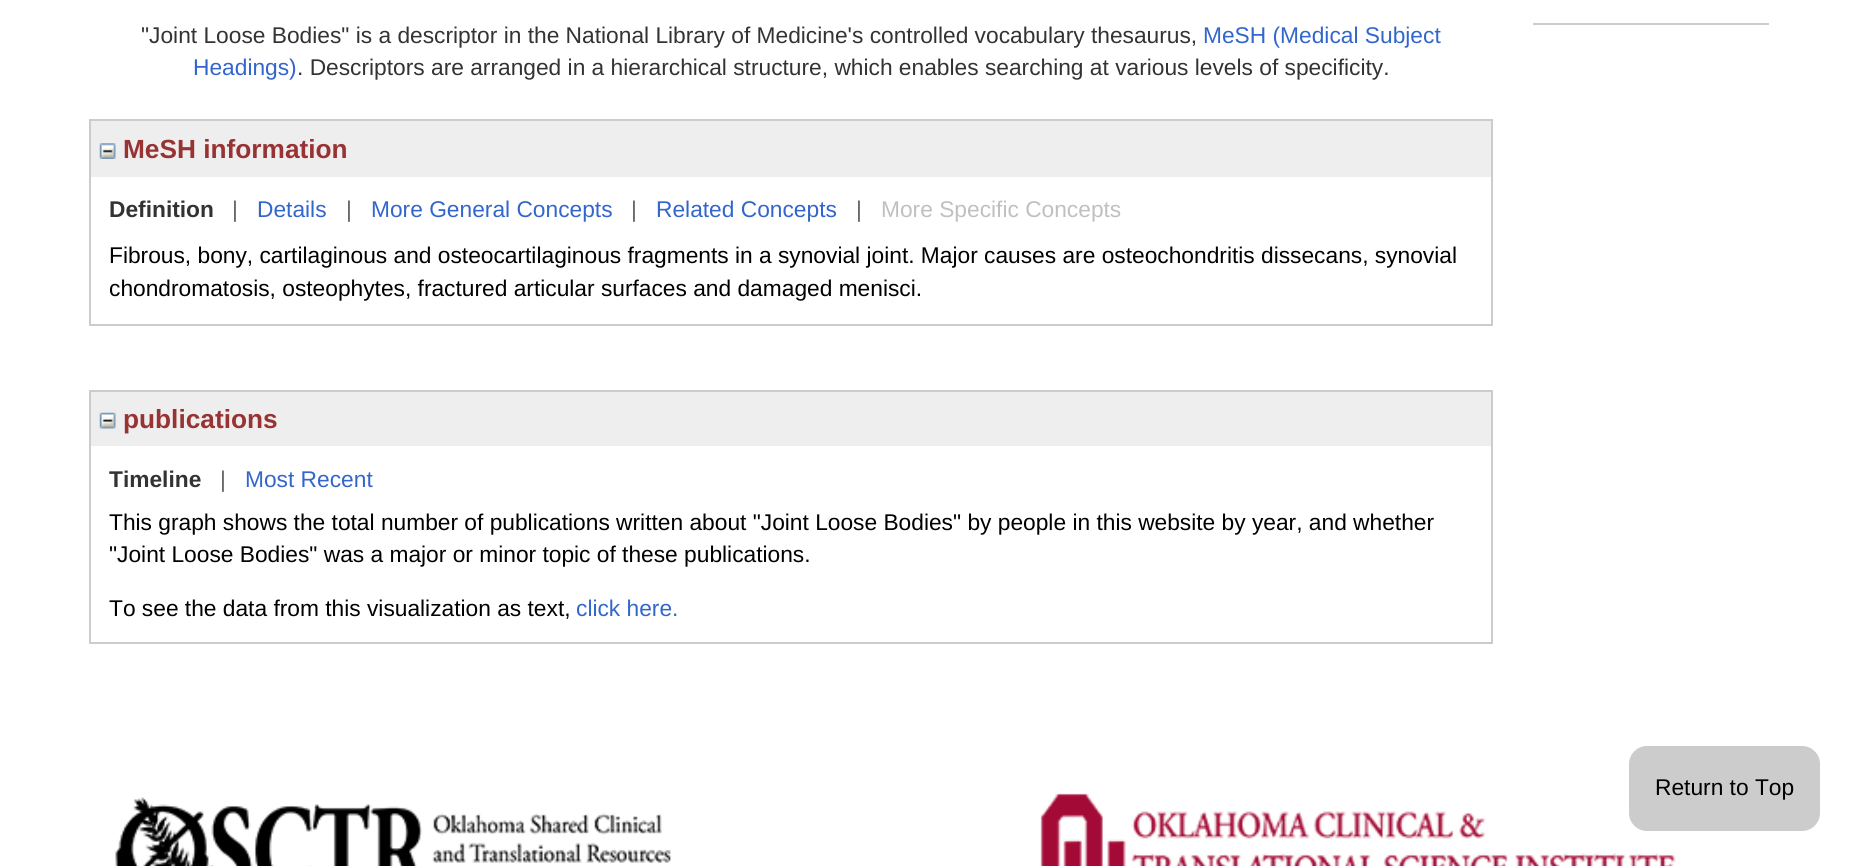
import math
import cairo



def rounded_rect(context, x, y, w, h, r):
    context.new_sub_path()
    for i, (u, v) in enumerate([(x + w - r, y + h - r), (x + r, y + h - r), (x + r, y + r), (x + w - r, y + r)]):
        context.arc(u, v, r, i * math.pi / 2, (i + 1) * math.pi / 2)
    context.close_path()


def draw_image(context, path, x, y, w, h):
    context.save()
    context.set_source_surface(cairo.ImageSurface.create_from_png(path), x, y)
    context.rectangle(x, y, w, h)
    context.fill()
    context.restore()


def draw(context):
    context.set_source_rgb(1, 1, 1)
    context.paint()
    context.set_source_rgb(204 / 255, 204 / 255, 204 / 255)
    context.rectangle(1533, 23, 236, 2)
    context.fill()
    context.rectangle(90, 120, 1402, 205)
    context.stroke()
    context.set_source_rgb(238 / 255, 238 / 255, 238 / 255)
    context.rectangle(91, 121, 1400, 56)
    context.fill()
    draw_image(context, "images/1.png", 99, 143, 17, 16)
    context.rectangle(90, 391, 1402, 252)
    context.set_source_rgb(204 / 255, 204 / 255, 204 / 255)
    context.stroke()
    context.set_source_rgb(238 / 255, 238 / 255, 238 / 255)
    context.rectangle(91, 392, 1400, 54)
    context.fill()
    draw_image(context, "images/2.png", 99, 412, 17, 17)
    draw_image(context, "images/3.png", 115, 793, 1561, 73)
    context.set_source_rgb(204 / 255, 204 / 255, 204 / 255)
    rounded_rect(context, 1629, 746, 191, 85, 18)
    context.fill()
    context.select_font_face("Liberation Sans")
    context.set_font_size(22.75)
    context.set_source_rgb(51 / 255, 51 / 255, 51 / 255)
    context.move_to(141, 43)
    context.show_text("\"Joint Loose Bodies\" is a descriptor in the National Library of Medicine's controlled vocabulary thesaurus,")
    context.set_source_rgb(51 / 255, 102 / 255, 204 / 255)
    context.move_to(1203, 43)
    context.show_text("MeSH (Medical Subject")
    context.move_to(193, 75)
    context.show_text("Headings)")
    context.set_source_rgb(51 / 255, 51 / 255, 51 / 255)
    context.move_to(297, 75)
    context.show_text(". Descriptors are arranged in a hierarchical structure, which enables searching at various levels of specificity.")
    context.select_font_face("Liberation Sans", cairo.FontSlant.NORMAL, cairo.FontWeight.BOLD)
    context.set_font_size(26.25)
    context.set_source_rgb(153 / 255, 51 / 255, 51 / 255)
    context.move_to(123, 158)
    context.show_text("MeSH information")
    context.set_font_size(22.75)
    context.set_source_rgb(51 / 255, 51 / 255, 51 / 255)
    context.move_to(109, 217)
    context.show_text("Definition")
    context.select_font_face("Liberation Sans")
    context.set_source_rgb(102 / 255, 102 / 255, 102 / 255)
    context.move_to(232, 217)
    context.show_text("|")
    context.set_source_rgb(51 / 255, 102 / 255, 204 / 255)
    context.move_to(257, 217)
    context.show_text("Details")
    context.set_source_rgb(102 / 255, 102 / 255, 102 / 255)
    context.move_to(346, 217)
    context.show_text("|")
    context.set_source_rgb(51 / 255, 102 / 255, 204 / 255)
    context.move_to(371, 217)
    context.show_text("More General Concepts")
    context.set_source_rgb(102 / 255, 102 / 255, 102 / 255)
    context.move_to(631, 217)
    context.show_text("|")
    context.set_source_rgb(51 / 255, 102 / 255, 204 / 255)
    context.move_to(656, 217)
    context.show_text("Related Concepts")
    context.set_source_rgb(102 / 255, 102 / 255, 102 / 255)
    context.move_to(856, 217)
    context.show_text("|")
    context.set_source_rgb(192 / 255, 192 / 255, 192 / 255)
    context.move_to(881, 217)
    context.show_text("More Specific Concepts")
    context.set_source_rgb(0, 0, 0)
    context.move_to(109, 263)
    context.show_text("Fibrous, bony, cartilaginous and osteocartilaginous fragments in a synovial joint. Major causes are osteochondritis dissecans, synovial")
    context.move_to(109, 296)
    context.show_text("chondromatosis, osteophytes, fractured articular surfaces and damaged menisci.")
    context.select_font_face("Liberation Sans", cairo.FontSlant.NORMAL, cairo.FontWeight.BOLD)
    context.set_font_size(26.25)
    context.set_source_rgb(153 / 255, 51 / 255, 51 / 255)
    context.move_to(123, 428)
    context.show_text("publications")
    context.set_font_size(22.75)
    context.set_source_rgb(51 / 255, 51 / 255, 51 / 255)
    context.move_to(109, 487)
    context.show_text("Timeline")
    context.select_font_face("Liberation Sans")
    context.set_source_rgb(102 / 255, 102 / 255, 102 / 255)
    context.move_to(220, 487)
    context.show_text("|")
    context.set_source_rgb(51 / 255, 102 / 255, 204 / 255)
    context.move_to(245, 487)
    context.show_text("Most Recent")
    context.set_source_rgb(0, 0, 0)
    context.move_to(109, 530)
    context.show_text("This graph shows the total number of publications written about \"Joint Loose Bodies\" by people in this website by year, and whether")
    context.move_to(109, 562)
    context.show_text("\"Joint Loose Bodies\" was a major or minor topic of these publications.")
    context.move_to(109, 616)
    context.show_text("To see the data from this visualization as text,")
    context.set_source_rgb(51 / 255, 102 / 255, 204 / 255)
    context.move_to(576, 616)
    context.show_text("click here.")
    context.set_source_rgb(0, 0, 0)
    context.move_to(1655, 795)
    context.show_text("Return to Top")


surface = cairo.ImageSurface(cairo.Format.RGB24, 1871, 866)
context = cairo.Context(surface)
options = cairo.FontOptions()
options.set_hint_metrics(cairo.HintMetrics.OFF)
options.set_hint_style(cairo.HintStyle.NONE)
context.set_font_options(options)
context.set_miter_limit(4)
draw(context)
surface.write_to_png("out.png")
